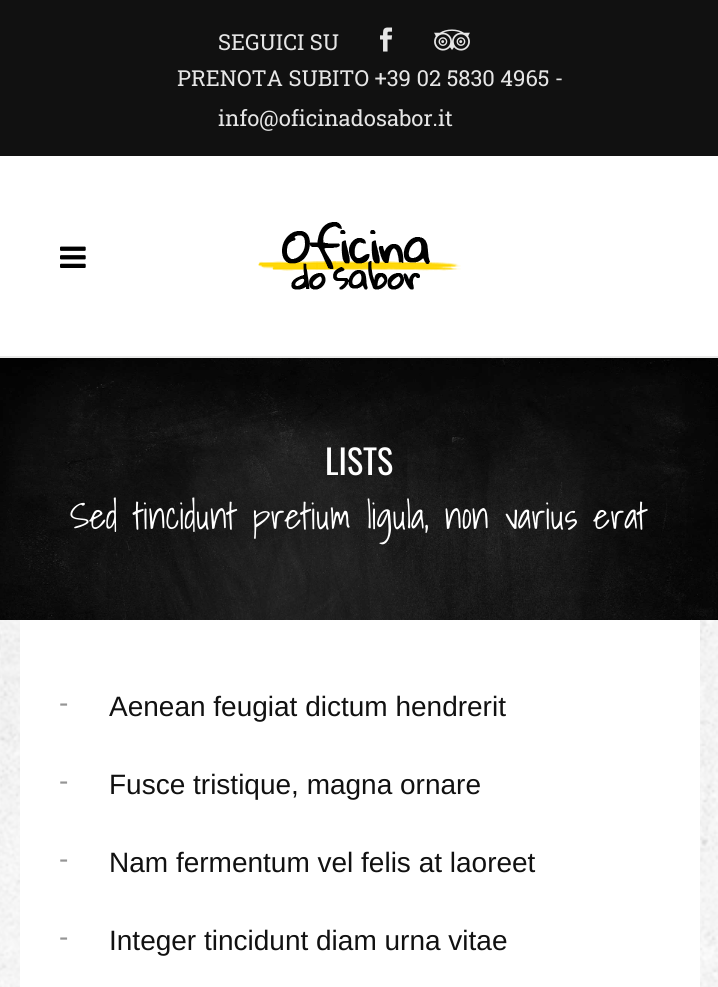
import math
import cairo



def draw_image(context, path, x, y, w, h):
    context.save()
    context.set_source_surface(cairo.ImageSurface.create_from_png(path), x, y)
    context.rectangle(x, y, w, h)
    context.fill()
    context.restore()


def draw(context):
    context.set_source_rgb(1, 1, 1)
    context.paint()
    context.set_source_rgb(17 / 255, 17 / 255, 17 / 255)
    context.rectangle(0, 0, 718, 156)
    context.fill()
    draw_image(context, "images/1.png", 380, 27, 13, 25)
    draw_image(context, "images/2.png", 434, 29, 36, 22)
    context.set_source_rgb(233 / 255, 233 / 255, 232 / 255)
    context.rectangle(0, 356, 718, 2)
    context.fill()
    draw_image(context, "images/3.png", 60, 246, 26, 22)
    draw_image(context, "images/4.png", 258, 222, 203, 68)
    draw_image(context, "images/5.png", 0, 358, 718, 262)
    draw_image(context, "images/6.png", 0, 620, 718, 367)
    context.set_source_rgb(1, 1, 1)
    context.rectangle(20, 620, 680, 367)
    context.fill()
    context.select_font_face("Roboto Slab")
    context.set_font_size(22)
    context.set_source_rgb(230 / 255, 230 / 255, 230 / 255)
    context.move_to(218, 50)
    context.show_text("SEGUICI SU")
    context.move_to(177, 86)
    context.show_text("PRENOTA SUBITO +39 02 5830 4965 -")
    context.move_to(218, 126)
    context.show_text("info@oficinadosabor.it")
    context.select_font_face("Oswald")
    context.set_font_size(34)
    context.set_source_rgb(1, 1, 1)
    context.move_to(325, 475)
    context.show_text("LISTS")
    context.select_font_face("Shadows Into Light Light")
    context.set_font_size(36)
    context.move_to(70, 529)
    context.show_text("Sed tincidunt pretium ligula, non varius erat")
    context.select_font_face("Liberation Sans")
    context.set_font_size(28)
    context.set_source_rgb(149 / 255, 149 / 255, 149 / 255)
    context.move_to(59, 712)
    context.show_text("-")
    context.set_source_rgb(17 / 255, 17 / 255, 17 / 255)
    context.move_to(109, 716)
    context.show_text("Aenean feugiat dictum hendrerit")
    context.set_source_rgb(149 / 255, 149 / 255, 149 / 255)
    context.move_to(59, 790)
    context.show_text("-")
    context.set_source_rgb(17 / 255, 17 / 255, 17 / 255)
    context.move_to(109, 794)
    context.show_text("Fusce tristique, magna ornare")
    context.set_source_rgb(149 / 255, 149 / 255, 149 / 255)
    context.move_to(59, 868)
    context.show_text("-")
    context.set_source_rgb(17 / 255, 17 / 255, 17 / 255)
    context.move_to(109, 872)
    context.show_text("Nam fermentum vel felis at laoreet")
    context.set_source_rgb(149 / 255, 149 / 255, 149 / 255)
    context.move_to(59, 946)
    context.show_text("-")
    context.set_source_rgb(17 / 255, 17 / 255, 17 / 255)
    context.move_to(109, 950)
    context.show_text("Integer tincidunt diam urna vitae")


surface = cairo.ImageSurface(cairo.Format.RGB24, 718, 987)
context = cairo.Context(surface)
options = cairo.FontOptions()
options.set_hint_metrics(cairo.HintMetrics.OFF)
options.set_hint_style(cairo.HintStyle.NONE)
context.set_font_options(options)
context.set_miter_limit(4)
draw(context)
surface.write_to_png("out.png")
